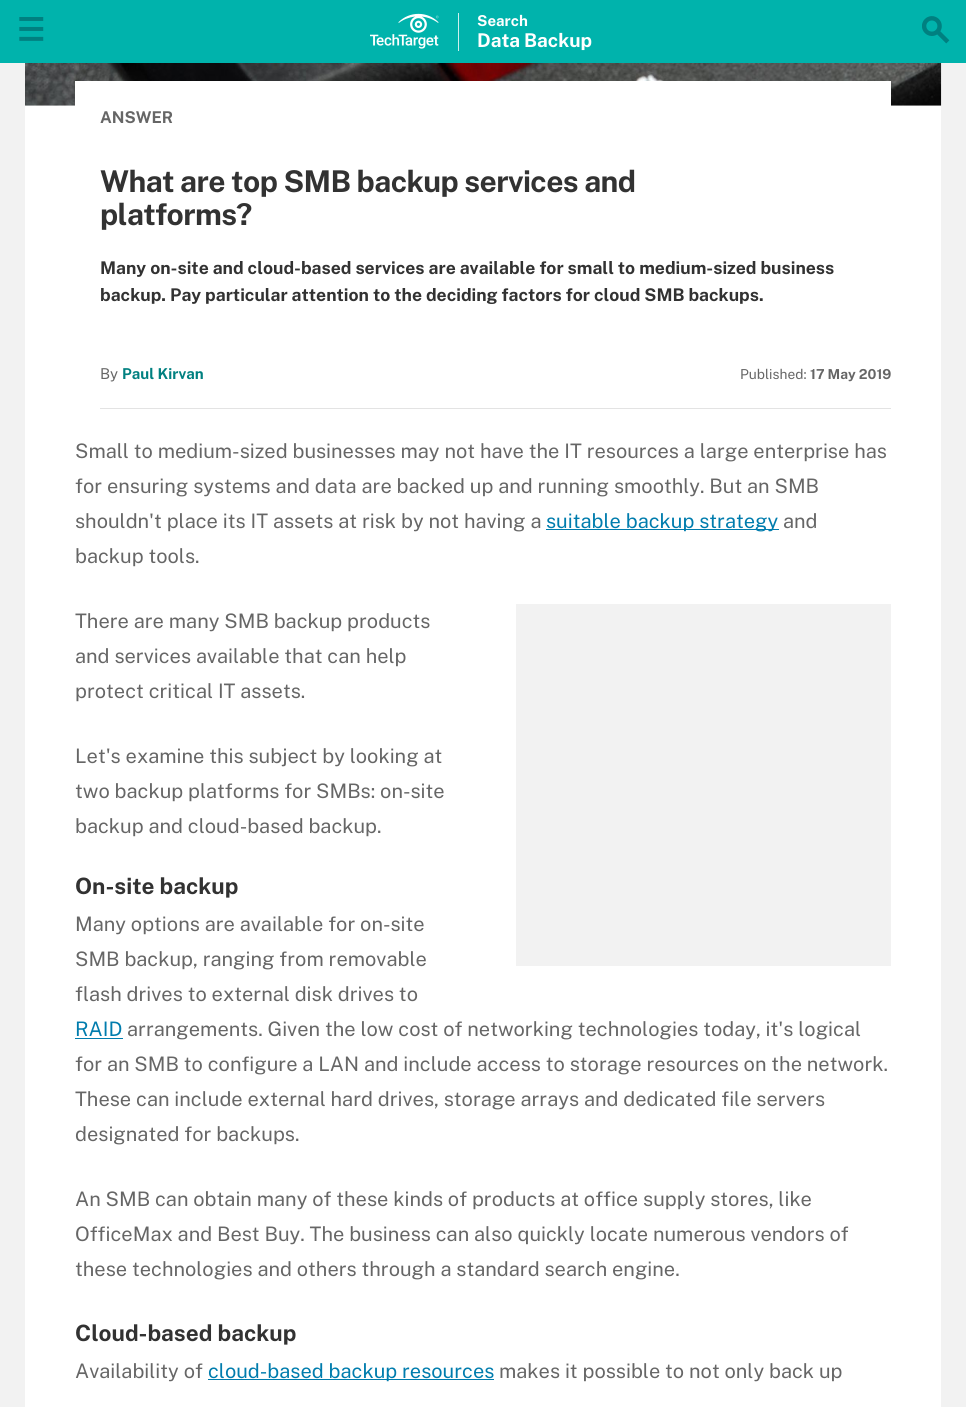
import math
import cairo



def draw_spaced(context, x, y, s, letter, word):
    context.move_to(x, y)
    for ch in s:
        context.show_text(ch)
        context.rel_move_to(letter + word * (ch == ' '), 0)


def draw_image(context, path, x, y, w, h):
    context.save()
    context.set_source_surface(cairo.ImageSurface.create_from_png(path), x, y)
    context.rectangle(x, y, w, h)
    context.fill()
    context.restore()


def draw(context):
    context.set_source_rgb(242 / 255, 242 / 255, 242 / 255)
    context.paint()
    context.set_source_rgb(0, 179 / 255, 172 / 255)
    context.rectangle(0, 0, 966, 63)
    context.fill()
    draw_image(context, "images/1.png", 19, 17, 25, 24)
    draw_image(context, "images/2.png", 370, 13, 69, 36)
    context.set_source_rgb(206 / 255, 240 / 255, 238 / 255)
    context.rectangle(458, 13, 1, 38)
    context.fill()
    draw_image(context, "images/3.png", 922, 16, 28, 28)
    context.set_source_rgb(1, 1, 1)
    context.rectangle(25, 105, 916, 1302)
    context.fill()
    draw_image(context, "images/4.png", 25, 63, 917, 43)
    context.rectangle(75, 81, 816, 25)
    context.fill()
    context.set_source_rgb(227 / 255, 227 / 255, 227 / 255)
    context.rectangle(100, 408, 791, 1)
    context.fill()
    context.set_source_rgb(0, 124 / 255, 173 / 255)
    context.rectangle(546, 529, 233, 1)
    context.fill()
    context.set_source_rgb(242 / 255, 242 / 255, 242 / 255)
    context.rectangle(516, 604, 375, 362)
    context.fill()
    context.set_source_rgb(0, 124 / 255, 173 / 255)
    context.rectangle(75, 1038, 48, 1)
    context.fill()
    context.rectangle(208, 1379, 286, 1)
    context.fill()
    context.select_font_face("Public Sans", cairo.FontSlant.NORMAL, cairo.FontWeight.BOLD)
    context.set_font_size(15)
    context.set_source_rgb(1, 1, 1)
    context.move_to(477, 26)
    context.show_text("Search")
    context.set_font_size(19)
    context.move_to(477, 47)
    context.show_text("Data")
    context.move_to(524, 47)
    context.show_text("Backup")
    context.set_font_size(16.25)
    context.set_source_rgb(102 / 255, 102 / 255, 102 / 255)
    context.move_to(100, 123)
    context.show_text("ANSWER")
    context.set_font_size(30)
    context.set_source_rgb(50 / 255, 50 / 255, 50 / 255)
    draw_spaced(context, 100, 192, "What are top SMB backup services and", -0.6, 0)
    draw_spaced(context, 100, 225, "platforms?", -0.6, 0)
    context.set_font_size(17.5)
    context.move_to(100, 274)
    context.show_text("Many on-site and cloud-based services are available for small to medium-sized business")
    context.move_to(100, 301)
    context.show_text("backup. Pay particular attention to the deciding factors for cloud SMB backups.")
    context.select_font_face("Public Sans")
    context.set_font_size(15)
    context.set_source_rgb(102 / 255, 102 / 255, 102 / 255)
    context.move_to(100, 379)
    context.show_text("By")
    context.select_font_face("Public Sans", cairo.FontSlant.NORMAL, cairo.FontWeight.BOLD)
    context.set_source_rgb(0, 128 / 255, 128 / 255)
    context.move_to(122, 379)
    context.show_text("Paul Kirvan")
    context.select_font_face("Public Sans")
    context.set_font_size(13.75)
    context.set_source_rgb(102 / 255, 102 / 255, 102 / 255)
    context.move_to(740, 379)
    context.show_text("Published:")
    context.select_font_face("Public Sans", cairo.FontSlant.NORMAL, cairo.FontWeight.BOLD)
    context.move_to(810, 379)
    context.show_text("17 May 2019")
    context.select_font_face("Public Sans")
    context.set_font_size(20)
    context.move_to(75, 458)
    context.show_text("Small to medium-sized businesses may not have the IT resources a large enterprise has")
    context.move_to(75, 493)
    context.show_text("for ensuring systems and data are backed up and running smoothly. But an SMB")
    context.move_to(75, 528)
    context.show_text("shouldn't place its IT assets at risk by not having a")
    context.set_source_rgb(0, 124 / 255, 173 / 255)
    context.move_to(546, 528)
    context.show_text("suitable backup strategy")
    context.set_source_rgb(102 / 255, 102 / 255, 102 / 255)
    context.move_to(783, 528)
    context.show_text("and")
    context.move_to(75, 563)
    context.show_text("backup tools.")
    context.move_to(75, 628)
    context.show_text("There are many SMB backup products")
    context.move_to(75, 663)
    context.show_text("and services available that can help")
    context.move_to(75, 698)
    context.show_text("protect critical IT assets.")
    context.move_to(75, 763)
    context.show_text("Let's examine this subject by looking at")
    context.move_to(75, 798)
    context.show_text("two backup platforms for SMBs: on-site")
    context.move_to(75, 833)
    context.show_text("backup and cloud-based backup.")
    context.select_font_face("Public Sans", cairo.FontSlant.NORMAL, cairo.FontWeight.BOLD)
    context.set_font_size(22.5)
    context.set_source_rgb(50 / 255, 50 / 255, 50 / 255)
    context.move_to(75, 894)
    context.show_text("On-site backup")
    context.select_font_face("Public Sans")
    context.set_font_size(20)
    context.set_source_rgb(102 / 255, 102 / 255, 102 / 255)
    context.move_to(75, 931)
    context.show_text("Many options are available for on-site")
    context.move_to(75, 966)
    context.show_text("SMB backup, ranging from removable")
    context.move_to(75, 1001)
    context.show_text("flash drives to external disk drives to")
    context.set_source_rgb(0, 124 / 255, 173 / 255)
    context.move_to(75, 1036)
    context.show_text("RAID")
    context.set_source_rgb(102 / 255, 102 / 255, 102 / 255)
    context.move_to(127, 1036)
    context.show_text("arrangements. Given the low cost of networking technologies today, it's logical")
    context.move_to(75, 1071)
    context.show_text("for an SMB to configure a LAN and include access to storage resources on the network.")
    context.move_to(75, 1106)
    context.show_text("These can include external hard drives, storage arrays and dedicated file servers")
    context.move_to(75, 1141)
    context.show_text("designated for backups.")
    context.move_to(75, 1206)
    context.show_text("An SMB can obtain many of these kinds of products at office supply stores, like")
    context.move_to(75, 1241)
    context.show_text("OfficeMax and Best Buy. The business can also quickly locate numerous vendors of")
    context.move_to(75, 1276)
    context.show_text("these technologies and others through a standard search engine.")
    context.select_font_face("Public Sans", cairo.FontSlant.NORMAL, cairo.FontWeight.BOLD)
    context.set_font_size(22.5)
    context.set_source_rgb(50 / 255, 50 / 255, 50 / 255)
    context.move_to(75, 1341)
    context.show_text("Cloud-based backup")
    context.select_font_face("Public Sans")
    context.set_font_size(20)
    context.set_source_rgb(102 / 255, 102 / 255, 102 / 255)
    context.move_to(75, 1378)
    context.show_text("Availability of")
    context.set_source_rgb(0, 124 / 255, 173 / 255)
    context.move_to(208, 1378)
    context.show_text("cloud-based backup resources")
    context.set_source_rgb(102 / 255, 102 / 255, 102 / 255)
    context.move_to(499, 1378)
    context.show_text("makes it possible to not only back up")


surface = cairo.ImageSurface(cairo.Format.RGB24, 966, 1407)
context = cairo.Context(surface)
options = cairo.FontOptions()
options.set_hint_metrics(cairo.HintMetrics.OFF)
options.set_hint_style(cairo.HintStyle.NONE)
context.set_font_options(options)
context.set_miter_limit(4)
draw(context)
surface.write_to_png("out.png")
